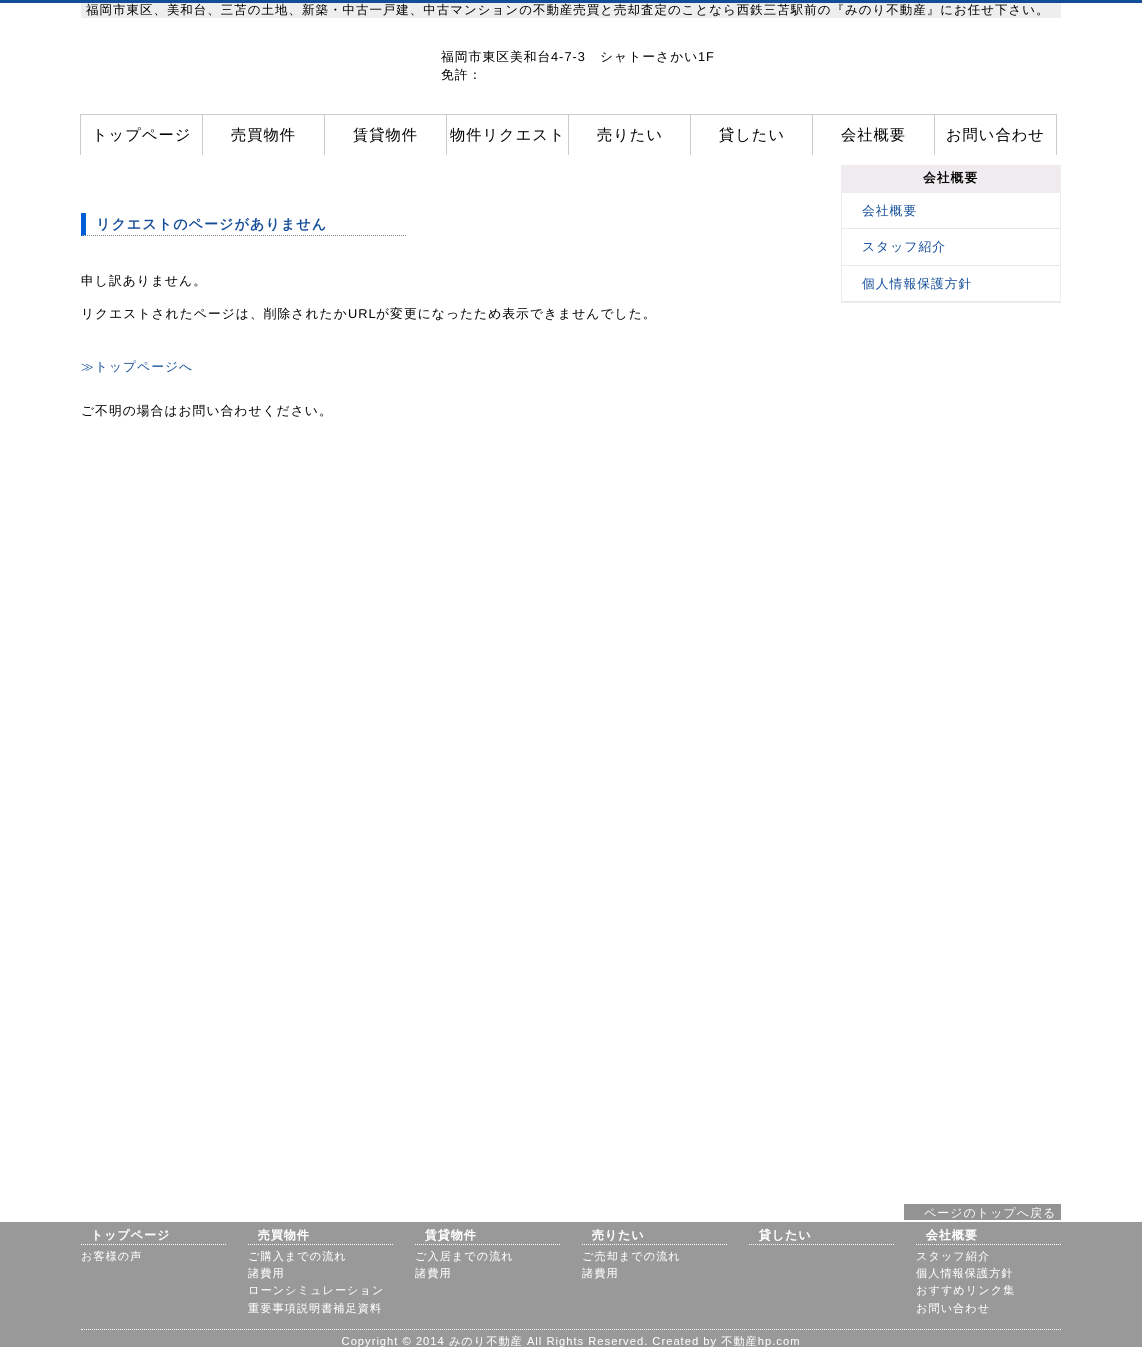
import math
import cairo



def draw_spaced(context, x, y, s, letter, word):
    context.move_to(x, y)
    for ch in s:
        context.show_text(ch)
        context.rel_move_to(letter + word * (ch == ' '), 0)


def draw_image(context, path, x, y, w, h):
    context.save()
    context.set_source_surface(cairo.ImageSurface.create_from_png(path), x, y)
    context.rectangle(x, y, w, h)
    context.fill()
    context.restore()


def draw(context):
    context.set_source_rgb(1, 1, 1)
    context.paint()
    context.set_source_rgb(19 / 255, 77 / 255, 153 / 255)
    context.rectangle(0, 0, 1142, 3)
    context.fill()
    context.set_source_rgb(238 / 255, 238 / 255, 238 / 255)
    context.rectangle(81, 3, 980, 15)
    context.fill()
    context.set_source_rgb(206 / 255, 203 / 255, 206 / 255)
    context.rectangle(80, 114, 977, 1)
    context.fill()
    context.rectangle(80, 114, 1, 41)
    context.fill()
    context.rectangle(202, 114, 1, 41)
    context.fill()
    context.rectangle(324, 114, 1, 41)
    context.fill()
    context.rectangle(446, 114, 1, 41)
    context.fill()
    context.rectangle(568, 114, 1, 41)
    context.fill()
    context.rectangle(690, 114, 1, 41)
    context.fill()
    context.rectangle(812, 114, 1, 41)
    context.fill()
    context.rectangle(1056, 114, 1, 41)
    context.fill()
    context.rectangle(934, 114, 1, 41)
    context.fill()
    context.new_path()
    context.move_to(81, 235.5)
    context.line_to(406, 235.5)
    context.set_source_rgb(128 / 255, 128 / 255, 128 / 255)
    context.set_line_width(1)
    context.set_dash([1, 1])
    context.stroke()
    context.set_source_rgb(0, 93 / 255, 216 / 255)
    context.new_path()
    context.move_to(81, 236)
    context.line_to(81, 213)
    context.line_to(86, 213)
    context.line_to(86, 235)
    context.close_path()
    context.fill()
    context.set_source_rgb(239 / 255, 235 / 255, 239 / 255)
    context.rectangle(841, 165, 220, 27)
    context.fill()
    context.rectangle(841.5, 192.5, 219, 110)
    context.set_dash([])
    context.stroke()
    context.set_source_rgb(231 / 255, 231 / 255, 239 / 255)
    context.rectangle(842, 228, 218, 1)
    context.fill()
    context.rectangle(842, 265, 218, 1)
    context.fill()
    context.rectangle(842, 301, 218, 1)
    context.fill()
    context.set_source_rgb(147 / 255, 147 / 255, 147 / 255)
    context.rectangle(904, 1204, 157, 16)
    context.fill()
    draw_image(context, "images/1.png", 0, 1222, 1142, 125)
    context.select_font_face("WenQuanYi Zen Hei Medium")
    context.set_font_size(12.48)
    context.set_source_rgb(0, 0, 0)
    draw_spaced(context, 86, 14, "福岡市東区、美和台、三苫の土地、新築・中古一戸建、中古マンションの不動産売買と売却査定のことなら西鉄三苫駅前の『みのり不動産』にお任せ下さい。", 1, 0)
    context.set_font_size(12.8)
    draw_spaced(context, 441, 61, "福岡市東区美和台", 1, 0)
    context.select_font_face("Liberation Sans")
    draw_spaced(context, 551, 61, "4-7-3", 1, 0)
    context.select_font_face("WenQuanYi Zen Hei Medium")
    draw_spaced(context, 600, 61, "シャトーさかい", 1, 0)
    context.select_font_face("Liberation Sans")
    draw_spaced(context, 698, 61, "1F", 1, 0)
    context.select_font_face("WenQuanYi Zen Hei Medium")
    draw_spaced(context, 441, 79, "免許：", 1, 0)
    context.set_font_size(15.25)
    draw_spaced(context, 92, 140, "トップページ", 1, 0)
    draw_spaced(context, 231, 140, "売買物件", 1, 0)
    draw_spaced(context, 353, 140, "賃貸物件", 1, 0)
    draw_spaced(context, 450, 140, "物件リクエスト", 1, 0)
    draw_spaced(context, 597, 140, "売りたい", 1, 0)
    draw_spaced(context, 719, 140, "貸したい", 1, 0)
    draw_spaced(context, 841, 140, "会社概要", 1, 0)
    draw_spaced(context, 946, 140, "お問い合わせ", 1, 0)
    context.select_font_face("WenQuanYi Zen Hei", cairo.FontSlant.NORMAL, cairo.FontWeight.BOLD)
    context.set_font_size(14.1)
    context.set_source_rgb(19 / 255, 77 / 255, 153 / 255)
    draw_spaced(context, 96, 229, "リクエストのページがありません", 1, 0)
    context.select_font_face("WenQuanYi Zen Hei Medium")
    context.set_font_size(12.8)
    context.set_source_rgb(0, 0, 0)
    draw_spaced(context, 81, 285, "申し訳ありません。", 1, 0)
    draw_spaced(context, 81, 318, "リクエストされたページは、削除されたか", 1, 0)
    context.select_font_face("Liberation Sans")
    draw_spaced(context, 348, 318, "URL", 1, 0)
    context.select_font_face("WenQuanYi Zen Hei Medium")
    draw_spaced(context, 376, 318, "が変更になったため表示できませんでした。", 1, 0)
    context.set_source_rgb(19 / 255, 77 / 255, 153 / 255)
    draw_spaced(context, 81, 371, "≫トップページへ", 1, 0)
    context.set_source_rgb(0, 0, 0)
    draw_spaced(context, 81, 415, "ご不明の場合はお問い合わせください。", 1, 0)
    context.select_font_face("WenQuanYi Zen Hei", cairo.FontSlant.NORMAL, cairo.FontWeight.BOLD)
    draw_spaced(context, 923, 182, "会社概要", 1, 0)
    context.select_font_face("WenQuanYi Zen Hei Medium")
    context.set_source_rgb(19 / 255, 77 / 255, 153 / 255)
    draw_spaced(context, 862, 215, "会社概要", 1, 0)
    draw_spaced(context, 862, 251, "スタッフ紹介", 1, 0)
    draw_spaced(context, 862, 288, "個人情報保護方針", 1, 0)
    context.set_font_size(12)
    context.set_source_rgb(1, 1, 1)
    draw_spaced(context, 924, 1217, "ページのトップへ戻る", 1, 0)


surface = cairo.ImageSurface(cairo.Format.RGB24, 1142, 1347)
context = cairo.Context(surface)
options = cairo.FontOptions()
options.set_hint_metrics(cairo.HintMetrics.OFF)
options.set_hint_style(cairo.HintStyle.NONE)
context.set_font_options(options)
context.set_miter_limit(4)
draw(context)
surface.write_to_png("out.png")
